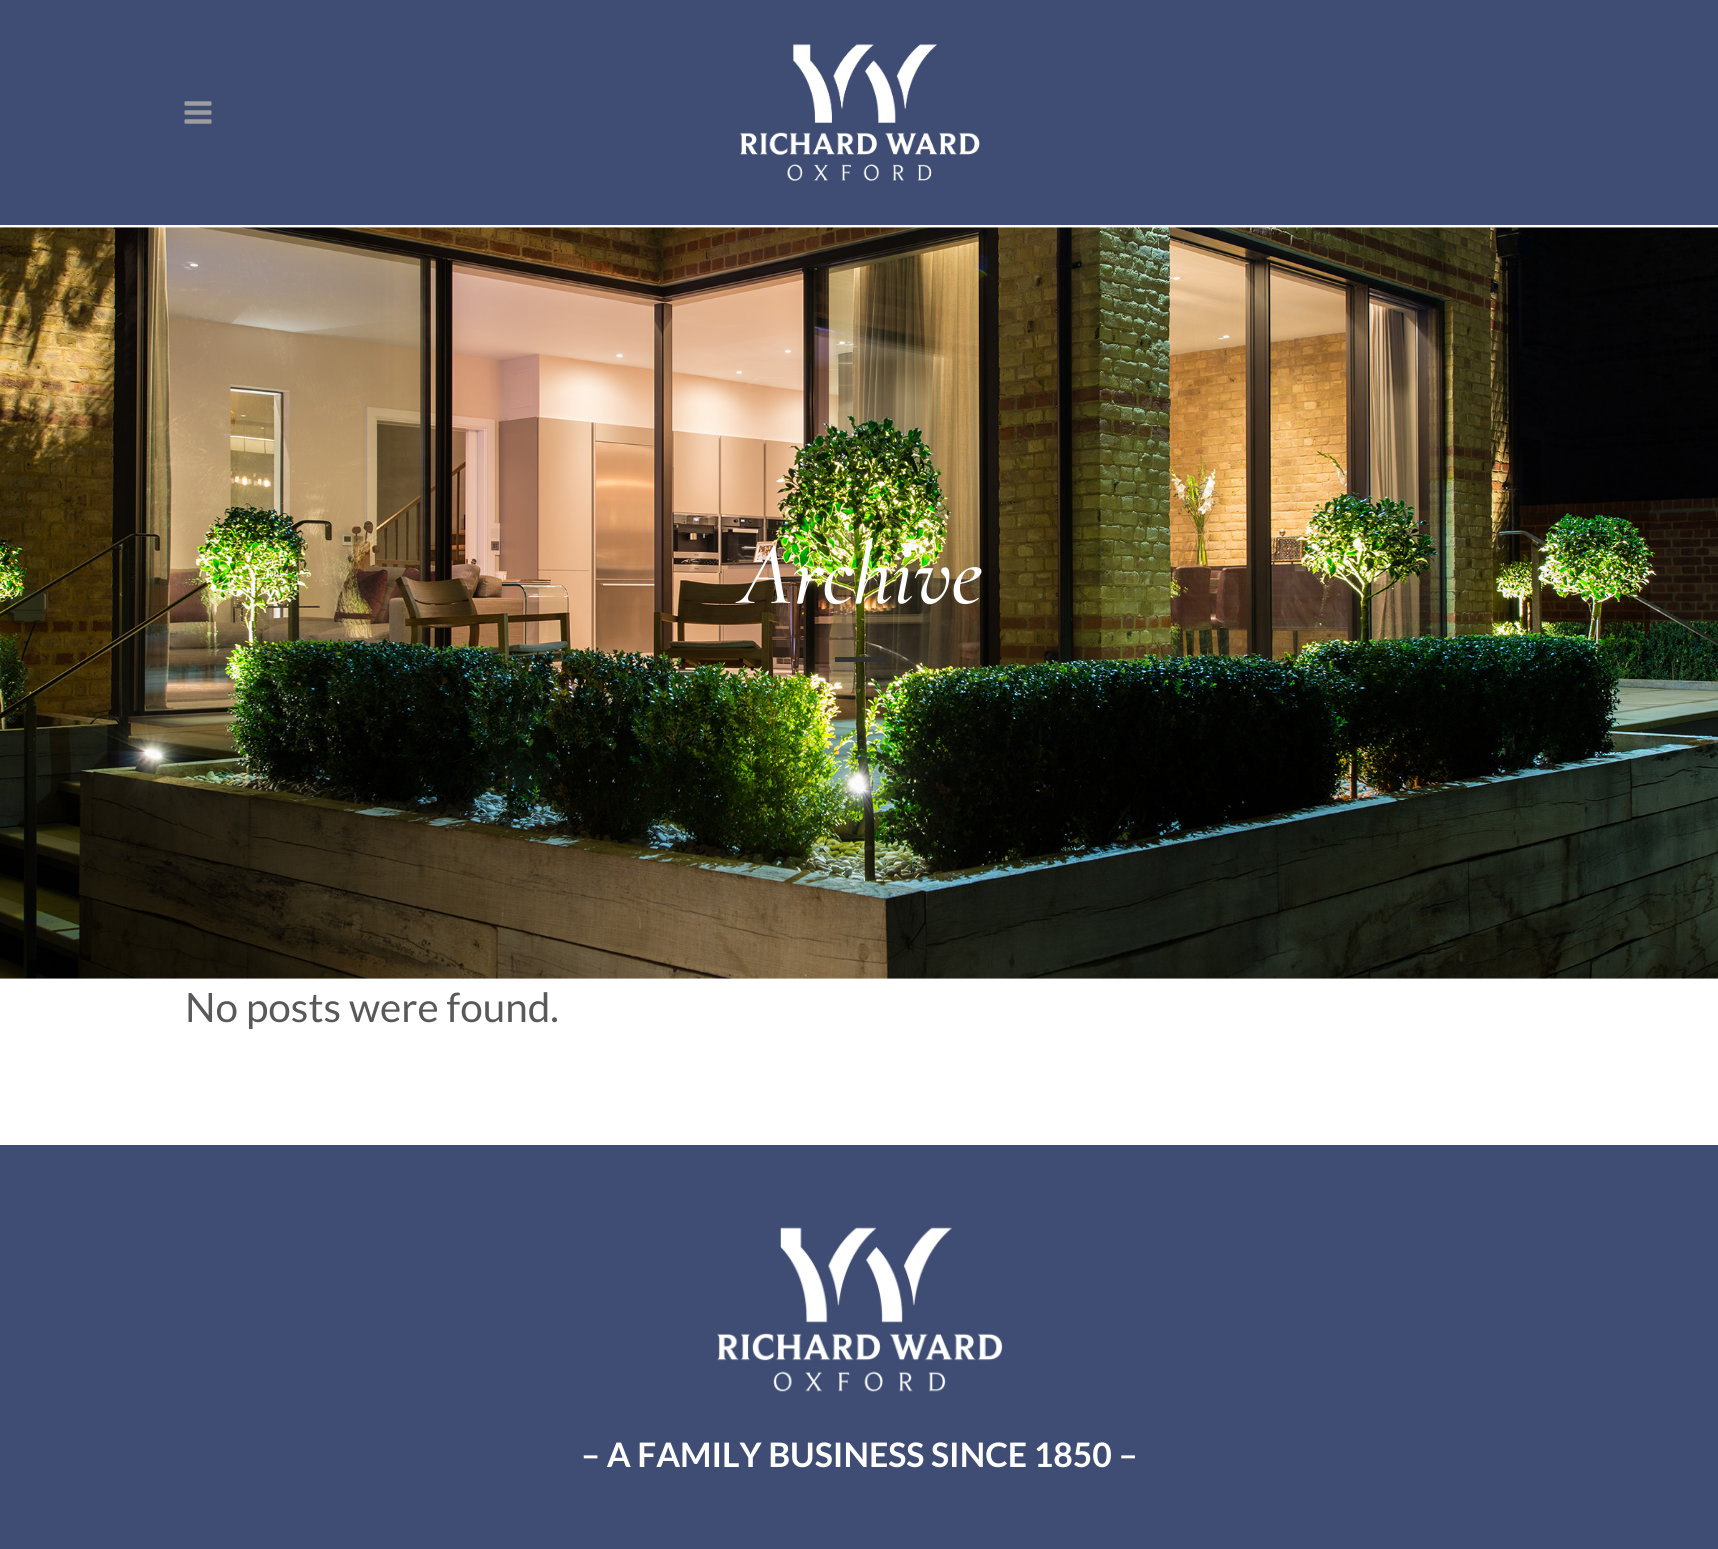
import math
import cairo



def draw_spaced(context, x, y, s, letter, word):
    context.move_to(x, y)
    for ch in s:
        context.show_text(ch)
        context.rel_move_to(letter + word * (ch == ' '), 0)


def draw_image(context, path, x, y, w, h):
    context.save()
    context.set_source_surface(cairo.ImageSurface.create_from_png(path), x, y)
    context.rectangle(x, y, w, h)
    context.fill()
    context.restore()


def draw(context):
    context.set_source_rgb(1, 1, 1)
    context.paint()
    context.set_source_rgb(63 / 255, 77 / 255, 116 / 255)
    context.rectangle(0, 0, 1718, 225)
    context.fill()
    draw_image(context, "images/1.png", 184, 101, 28, 23)
    draw_image(context, "images/2.png", 739, 44, 241, 137)
    draw_image(context, "images/3.png", 0, 227, 1718, 752)
    context.set_source_rgb(48 / 255, 48 / 255, 48 / 255)
    context.rectangle(835, 657, 49, 5)
    context.fill()
    context.set_source_rgb(63 / 255, 77 / 255, 116 / 255)
    context.rectangle(0, 1145, 1718, 404)
    context.fill()
    draw_image(context, "images/4.png", 717, 1227, 286, 165)
    context.select_font_face("Cormorant Garamond Medium", cairo.FontSlant.ITALIC)
    context.set_font_size(90)
    context.set_source_rgb(1, 1, 1)
    draw_spaced(context, 739, 603, "Archive", -1, 0)
    context.select_font_face("Lato")
    context.set_font_size(40.5)
    context.set_source_rgb(89 / 255, 89 / 255, 89 / 255)
    context.move_to(185, 1022)
    context.show_text("No posts were found.")
    context.select_font_face("Lato", cairo.FontSlant.NORMAL, cairo.FontWeight.BOLD)
    context.set_font_size(33.75)
    context.set_source_rgb(1, 1, 1)
    context.move_to(581, 1467)
    context.show_text("– A FAMILY BUSINESS SINCE 1850 –")


surface = cairo.ImageSurface(cairo.Format.RGB24, 1718, 1549)
context = cairo.Context(surface)
options = cairo.FontOptions()
options.set_hint_metrics(cairo.HintMetrics.OFF)
options.set_hint_style(cairo.HintStyle.NONE)
context.set_font_options(options)
context.set_miter_limit(4)
draw(context)
surface.write_to_png("out.png")
